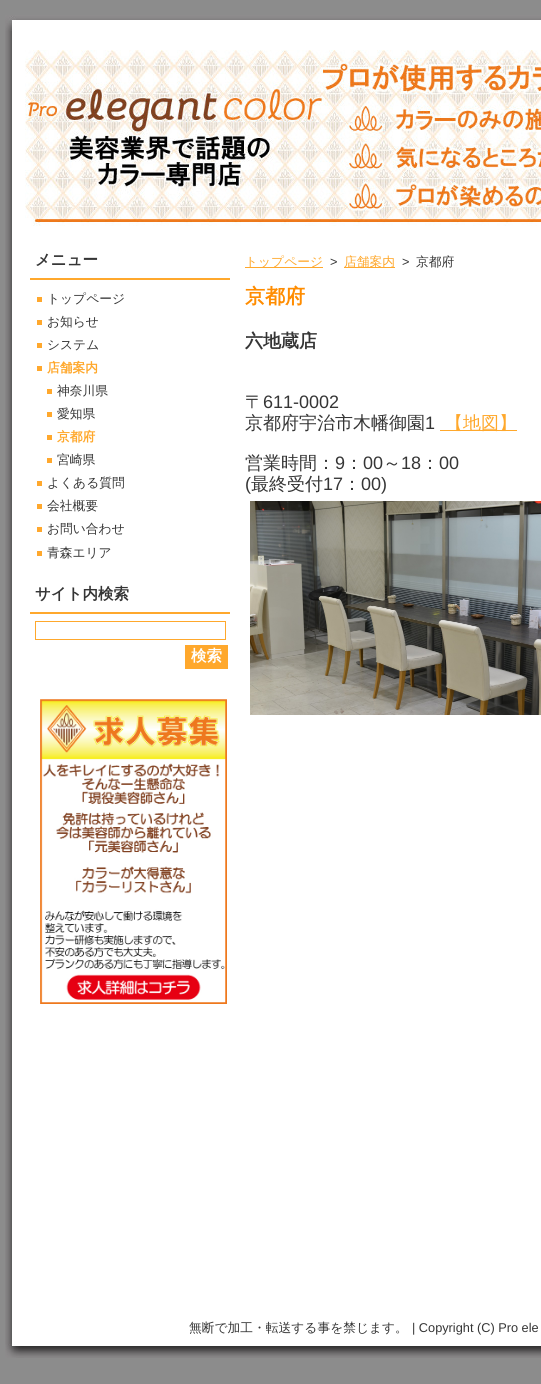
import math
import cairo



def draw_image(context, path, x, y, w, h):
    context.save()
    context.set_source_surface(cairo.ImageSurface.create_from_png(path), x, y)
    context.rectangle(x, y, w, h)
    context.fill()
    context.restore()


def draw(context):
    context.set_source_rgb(140 / 255, 140 / 255, 140 / 255)
    context.paint()
    draw_image(context, "images/1.png", 5, 31, 536, 1313)
    draw_image(context, "images/2.png", 5, 15, 536, 16)
    draw_image(context, "images/3.png", 25, 50, 516, 176)
    context.set_source_rgb(1, 168 / 255, 44 / 255)
    context.rectangle(30, 278, 200, 2)
    context.fill()
    context.set_source_rgb(1, 168 / 255, 45 / 255)
    context.rectangle(37, 297, 5, 5)
    context.fill()
    context.rectangle(37, 320, 5, 5)
    context.fill()
    context.rectangle(37, 343, 5, 5)
    context.fill()
    context.rectangle(37, 366, 5, 5)
    context.fill()
    context.rectangle(47, 389, 5, 5)
    context.fill()
    context.rectangle(47, 412, 5, 5)
    context.fill()
    context.rectangle(47, 435, 5, 5)
    context.fill()
    context.rectangle(47, 458, 5, 5)
    context.fill()
    context.rectangle(37, 481, 5, 5)
    context.fill()
    context.rectangle(37, 504, 5, 5)
    context.fill()
    context.rectangle(37, 527, 5, 5)
    context.fill()
    context.rectangle(37, 551, 5, 5)
    context.fill()
    context.set_source_rgb(1, 168 / 255, 44 / 255)
    context.rectangle(30, 612, 200, 2)
    context.fill()
    context.rectangle(35.5, 621.5, 190, 18)
    context.set_line_width(1)
    context.stroke()
    context.rectangle(185, 645, 43, 24)
    context.fill()
    draw_image(context, "images/4.png", 40, 699, 187, 305)
    context.rectangle(245, 267, 78, 1)
    context.fill()
    context.rectangle(344, 267, 51, 1)
    context.fill()
    context.rectangle(440, 430, 77, 1)
    context.fill()
    draw_image(context, "images/5.png", 250, 501, 291, 214)
    draw_image(context, "images/6.png", 5, 1344, 536, 14)
    context.select_font_face("WenQuanYi Zen Hei", cairo.FontSlant.NORMAL, cairo.FontWeight.BOLD)
    context.set_font_size(15.5)
    context.set_source_rgb(53 / 255, 53 / 255, 53 / 255)
    context.move_to(35, 265)
    context.show_text("メニュー")
    context.select_font_face("WenQuanYi Zen Hei Medium")
    context.set_font_size(12.75)
    context.move_to(47, 303)
    context.show_text("トップページ")
    context.move_to(47, 326)
    context.show_text("お知らせ")
    context.move_to(47, 349)
    context.show_text("システム")
    context.select_font_face("WenQuanYi Zen Hei", cairo.FontSlant.NORMAL, cairo.FontWeight.BOLD)
    context.set_source_rgb(1, 168 / 255, 44 / 255)
    context.move_to(47, 372)
    context.show_text("店舗案内")
    context.select_font_face("WenQuanYi Zen Hei Medium")
    context.set_source_rgb(53 / 255, 53 / 255, 53 / 255)
    context.move_to(57, 395)
    context.show_text("神奈川県")
    context.move_to(57, 418)
    context.show_text("愛知県")
    context.select_font_face("WenQuanYi Zen Hei", cairo.FontSlant.NORMAL, cairo.FontWeight.BOLD)
    context.set_source_rgb(1, 168 / 255, 44 / 255)
    context.move_to(57, 441)
    context.show_text("京都府")
    context.select_font_face("WenQuanYi Zen Hei Medium")
    context.set_source_rgb(53 / 255, 53 / 255, 53 / 255)
    context.move_to(57, 464)
    context.show_text("宮崎県")
    context.move_to(47, 487)
    context.show_text("よくある質問")
    context.move_to(47, 510)
    context.show_text("会社概要")
    context.move_to(47, 533)
    context.show_text("お問い合わせ")
    context.move_to(47, 557)
    context.show_text("青森エリア")
    context.select_font_face("WenQuanYi Zen Hei", cairo.FontSlant.NORMAL, cairo.FontWeight.BOLD)
    context.set_font_size(15.5)
    context.move_to(35, 599)
    context.show_text("サイト内検索")
    context.set_source_rgb(1, 1, 1)
    context.move_to(191, 661)
    context.show_text("検索")
    context.select_font_face("WenQuanYi Zen Hei Medium")
    context.set_font_size(12.75)
    context.set_source_rgb(1, 168 / 255, 44 / 255)
    context.move_to(245, 266)
    context.show_text("トップページ")
    context.select_font_face("Liberation Sans")
    context.set_source_rgb(53 / 255, 53 / 255, 53 / 255)
    context.move_to(330, 266)
    context.show_text(">")
    context.select_font_face("WenQuanYi Zen Hei Medium")
    context.set_source_rgb(1, 168 / 255, 44 / 255)
    context.move_to(344, 266)
    context.show_text("店舗案内")
    context.select_font_face("Liberation Sans")
    context.set_source_rgb(53 / 255, 53 / 255, 53 / 255)
    context.move_to(402, 266)
    context.show_text(">")
    context.select_font_face("WenQuanYi Zen Hei Medium")
    context.move_to(416, 266)
    context.show_text("京都府")
    context.select_font_face("WenQuanYi Zen Hei", cairo.FontSlant.NORMAL, cairo.FontWeight.BOLD)
    context.set_font_size(20)
    context.set_source_rgb(1, 140 / 255, 0)
    context.move_to(245, 303)
    context.show_text("京都府")
    context.set_font_size(18)
    context.set_source_rgb(53 / 255, 53 / 255, 53 / 255)
    context.move_to(245, 347)
    context.show_text("六地蔵店")
    context.select_font_face("WenQuanYi Zen Hei Medium")
    context.move_to(245, 408)
    context.show_text("〒")
    context.select_font_face("Liberation Sans")
    context.move_to(263, 408)
    context.show_text("611-0002")
    context.select_font_face("WenQuanYi Zen Hei Medium")
    context.move_to(245, 429)
    context.show_text("京都府宇治市木幡御園")
    context.select_font_face("Liberation Sans")
    context.move_to(425, 429)
    context.show_text("1")
    context.select_font_face("WenQuanYi Zen Hei Medium")
    context.set_source_rgb(1, 168 / 255, 44 / 255)
    context.move_to(445, 429)
    context.show_text("【地図】")
    context.set_source_rgb(53 / 255, 53 / 255, 53 / 255)
    context.move_to(245, 469)
    context.show_text("営業時間：")
    context.select_font_face("Liberation Sans")
    context.move_to(335, 469)
    context.show_text("9")
    context.select_font_face("WenQuanYi Zen Hei Medium")
    context.move_to(345, 469)
    context.show_text("：")
    context.select_font_face("Liberation Sans")
    context.move_to(363, 469)
    context.show_text("00")
    context.select_font_face("WenQuanYi Zen Hei Medium")
    context.move_to(383, 469)
    context.show_text("～")
    context.select_font_face("Liberation Sans")
    context.move_to(401, 469)
    context.show_text("18")
    context.select_font_face("WenQuanYi Zen Hei Medium")
    context.move_to(421, 469)
    context.show_text("：")
    context.select_font_face("Liberation Sans")
    context.move_to(439, 469)
    context.show_text("00")
    context.move_to(245, 490)
    context.show_text("(")
    context.select_font_face("WenQuanYi Zen Hei Medium")
    context.move_to(251, 490)
    context.show_text("最終受付")
    context.select_font_face("Liberation Sans")
    context.move_to(323, 490)
    context.show_text("17")
    context.select_font_face("WenQuanYi Zen Hei Medium")
    context.move_to(343, 490)
    context.show_text("：")
    context.select_font_face("Liberation Sans")
    context.move_to(361, 490)
    context.show_text("00)")
    context.select_font_face("WenQuanYi Zen Hei Medium")
    context.set_font_size(12.75)
    context.move_to(189, 1332)
    context.show_text("無断で加工・転送する事を禁じます。")
    context.select_font_face("Liberation Sans")
    context.move_to(412, 1332)
    context.show_text("| Copyright (C) Pro ele")


surface = cairo.ImageSurface(cairo.Format.RGB24, 541, 1384)
context = cairo.Context(surface)
options = cairo.FontOptions()
options.set_hint_metrics(cairo.HintMetrics.OFF)
options.set_hint_style(cairo.HintStyle.NONE)
context.set_font_options(options)
context.set_miter_limit(4)
draw(context)
surface.write_to_png("out.png")
